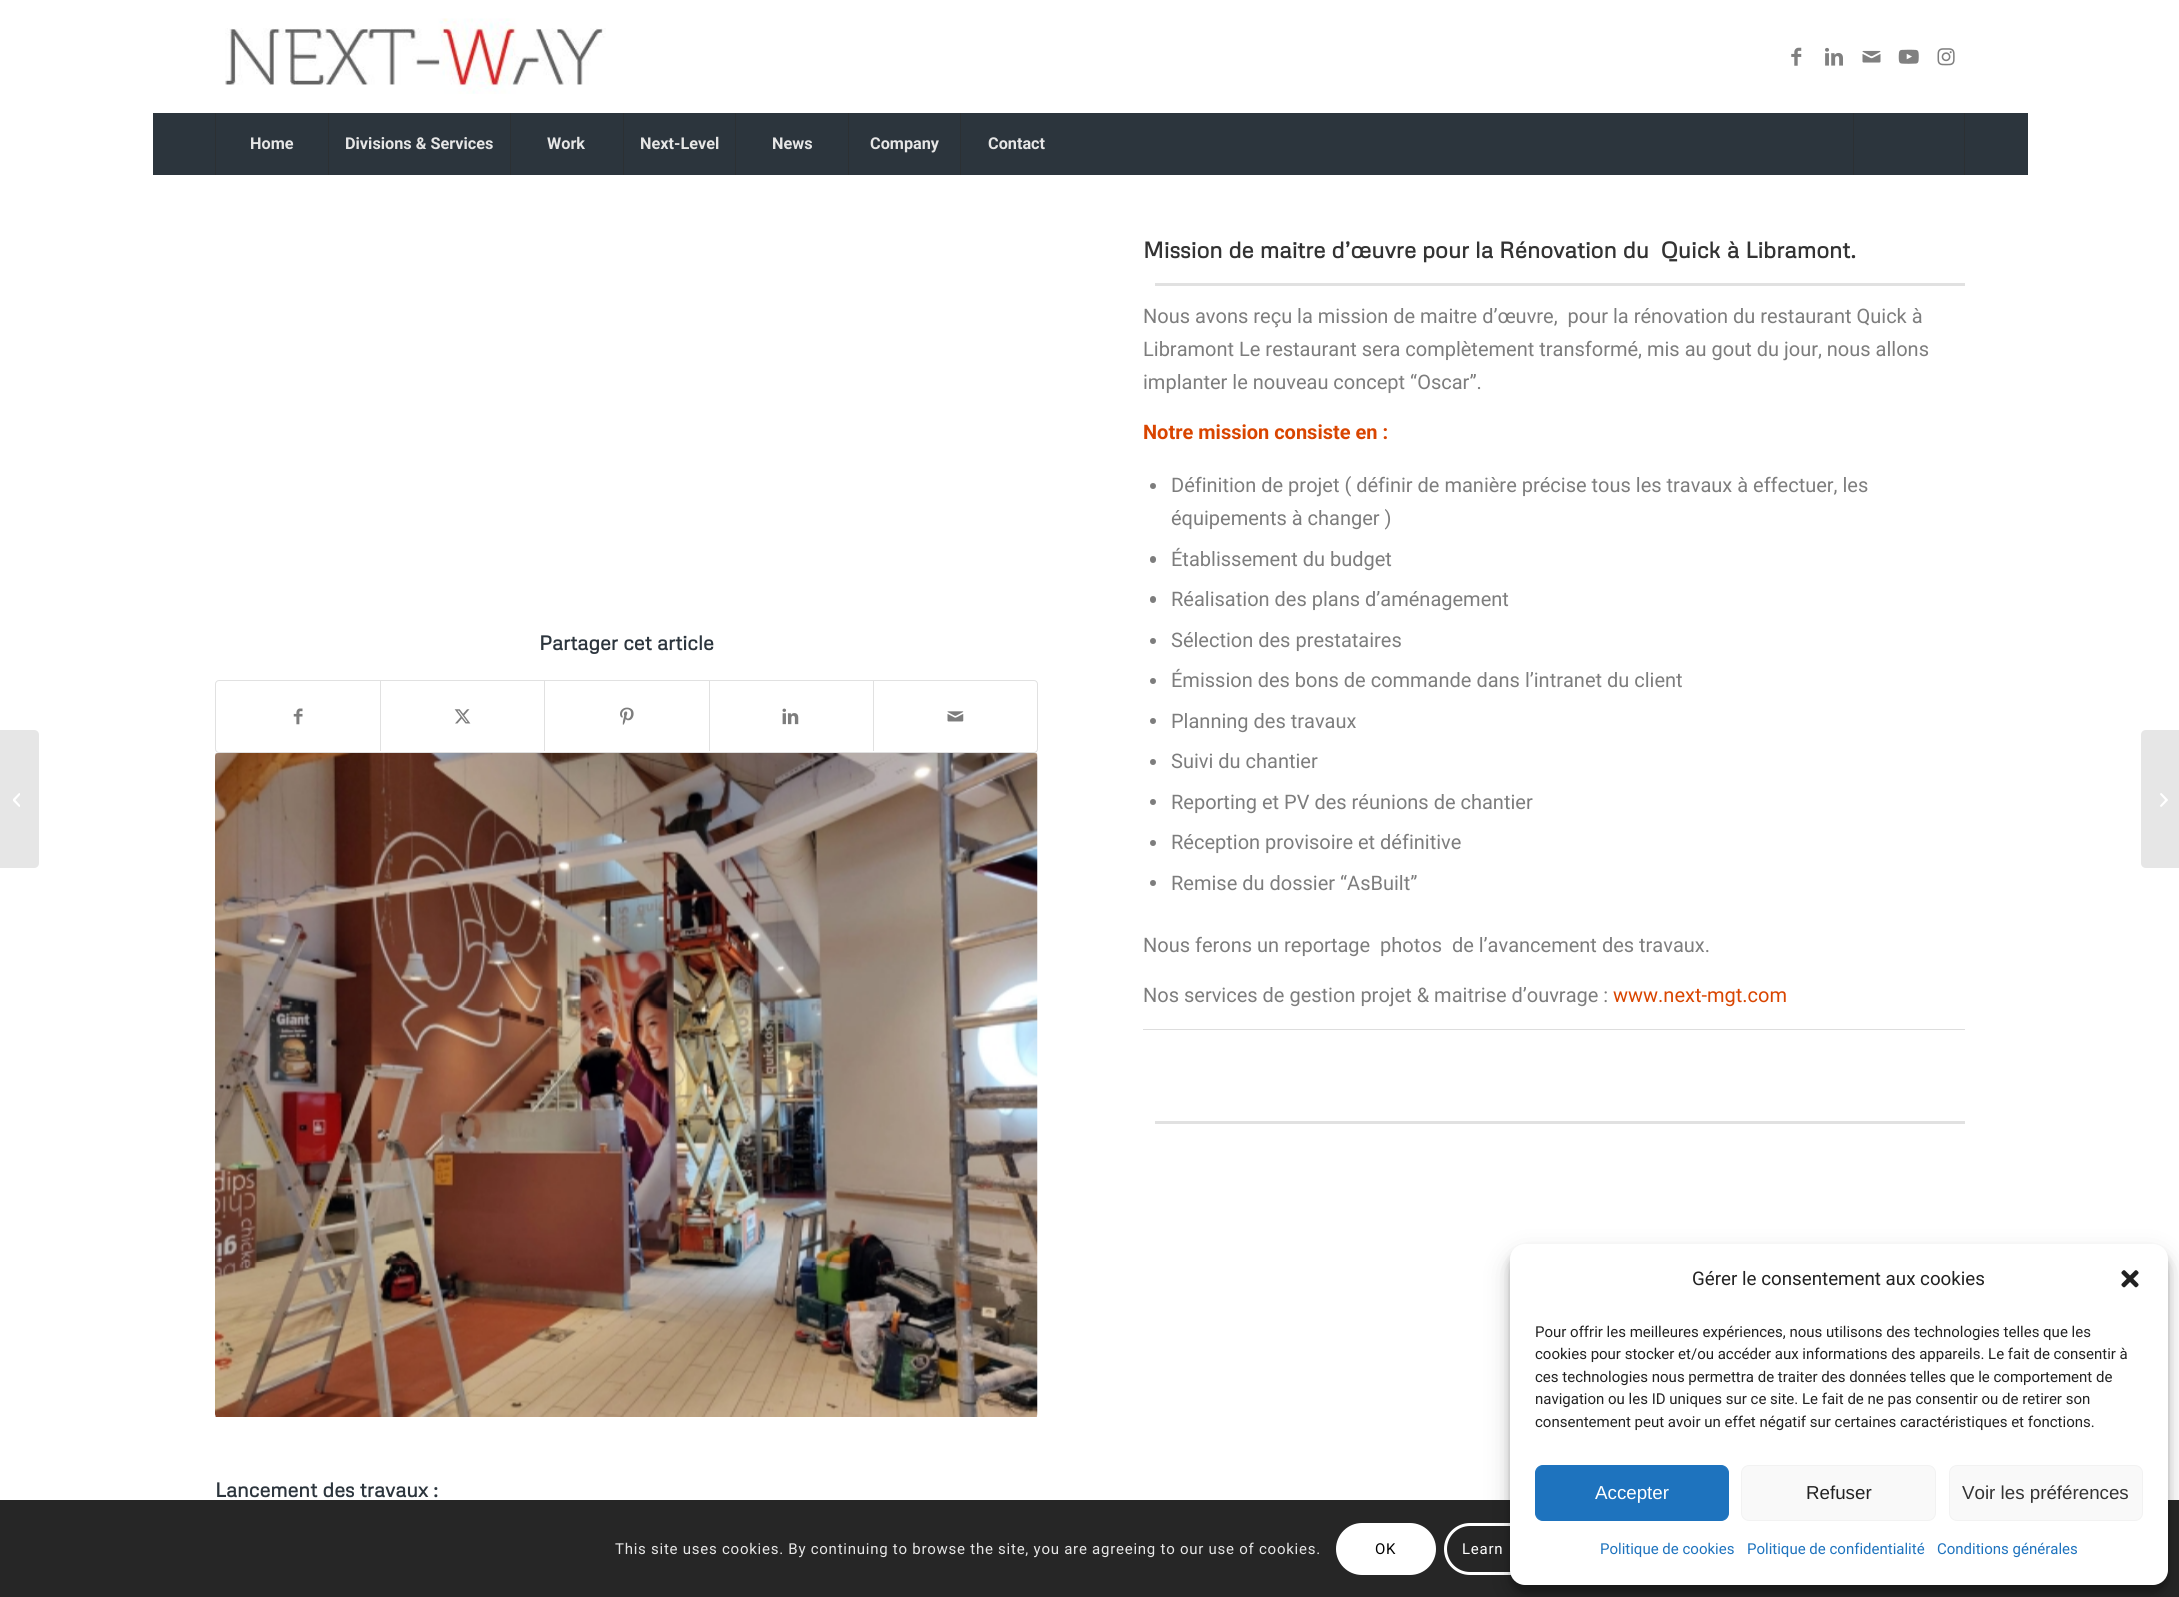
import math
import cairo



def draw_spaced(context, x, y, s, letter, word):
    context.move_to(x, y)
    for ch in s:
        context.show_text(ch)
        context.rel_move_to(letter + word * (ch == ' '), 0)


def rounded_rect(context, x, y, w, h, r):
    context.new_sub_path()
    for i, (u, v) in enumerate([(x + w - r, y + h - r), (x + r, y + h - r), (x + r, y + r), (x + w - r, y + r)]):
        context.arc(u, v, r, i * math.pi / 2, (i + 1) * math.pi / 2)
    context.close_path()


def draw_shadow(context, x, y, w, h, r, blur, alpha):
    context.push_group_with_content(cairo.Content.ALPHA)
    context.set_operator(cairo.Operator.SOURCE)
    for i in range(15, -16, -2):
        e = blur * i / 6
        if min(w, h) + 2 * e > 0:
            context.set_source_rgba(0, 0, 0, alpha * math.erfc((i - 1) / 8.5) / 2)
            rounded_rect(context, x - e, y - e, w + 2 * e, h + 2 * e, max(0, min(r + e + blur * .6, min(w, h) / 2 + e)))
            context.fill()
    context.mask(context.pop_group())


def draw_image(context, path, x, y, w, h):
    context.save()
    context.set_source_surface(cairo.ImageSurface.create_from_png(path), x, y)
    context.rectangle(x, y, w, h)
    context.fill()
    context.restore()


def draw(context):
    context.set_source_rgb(1, 1, 1)
    context.paint()
    draw_image(context, "images/1.png", 225, 18, 381, 76)
    draw_image(context, "images/2.png", 1791, 47, 11, 19)
    draw_image(context, "images/3.png", 1825, 47, 18, 19)
    draw_image(context, "images/4.png", 1862, 50, 19, 13)
    draw_image(context, "images/5.png", 1898, 49, 21, 15)
    draw_image(context, "images/6.png", 1937, 48, 18, 18)
    context.set_source_rgb(44 / 255, 53 / 255, 61 / 255)
    context.rectangle(153, 113, 1875, 62)
    context.fill()
    context.set_source_rgb(44 / 255, 48 / 255, 51 / 255)
    context.rectangle(215, 113, 1, 62)
    context.fill()
    context.rectangle(328, 113, 1, 62)
    context.fill()
    context.rectangle(510, 113, 1, 62)
    context.fill()
    context.rectangle(623, 113, 1, 62)
    context.fill()
    context.rectangle(735, 113, 1, 62)
    context.fill()
    context.rectangle(848, 113, 1, 62)
    context.fill()
    context.rectangle(960, 113, 1, 62)
    context.fill()
    context.rectangle(1964, 113, 1, 62)
    context.fill()
    context.rectangle(1853, 113, 1, 62)
    context.fill()
    context.set_source_rgb(230 / 255, 230 / 255, 230 / 255)
    context.new_path()
    context.move_to(0, 730)
    context.line_to(34, 730)
    context.curve_to(37, 730, 39, 732, 39, 735)
    context.line_to(39, 863)
    context.curve_to(39, 866, 37, 868, 34, 868)
    context.line_to(0, 868)
    context.close_path()
    context.fill()
    draw_image(context, "images/7.png", 13, 793, 7, 14)
    rounded_rect(context, 215.5, 680.5, 822, 72, 3.5)
    context.set_source_rgb(225 / 255, 225 / 255, 225 / 255)
    context.set_line_width(1)
    context.stroke()
    draw_image(context, "images/8.png", 293, 708, 10, 17)
    context.rectangle(380, 681, 1, 70)
    context.fill()
    draw_image(context, "images/9.png", 454, 709, 17, 15)
    context.rectangle(544, 681, 1, 70)
    context.fill()
    draw_image(context, "images/10.png", 620, 707, 14, 18)
    context.rectangle(709, 681, 1, 70)
    context.fill()
    draw_image(context, "images/11.png", 782, 708, 17, 17)
    context.rectangle(873, 681, 1, 70)
    context.fill()
    draw_image(context, "images/12.png", 947, 711, 17, 11)
    draw_image(context, "images/13.png", 215, 753, 823, 664)
    context.rectangle(1155, 283, 810, 3)
    context.fill()
    context.set_source_rgb(125 / 255, 125 / 255, 125 / 255)
    context.arc(1153, 486, 3, 0, 2 * math.pi)
    context.fill()
    rounded_rect(context, 1150, 556, 6, 7, 3)
    context.fill()
    rounded_rect(context, 1150, 596, 6, 7, 3)
    context.fill()
    context.arc(1153, 641, 3, 0, 2 * math.pi)
    context.fill()
    context.arc(1153, 681, 3, 0, 2 * math.pi)
    context.fill()
    context.arc(1153, 721, 3, 0, 2 * math.pi)
    context.fill()
    context.arc(1153, 762, 3, 0, 2 * math.pi)
    context.fill()
    context.arc(1153, 802, 3, 0, 2 * math.pi)
    context.fill()
    context.arc(1153, 843, 3, 0, 2 * math.pi)
    context.fill()
    context.arc(1153, 883, 3, 0, 2 * math.pi)
    context.fill()
    context.set_source_rgb(221 / 255, 221 / 255, 221 / 255)
    context.rectangle(1143, 1029, 822, 1)
    context.fill()
    context.set_source_rgb(225 / 255, 225 / 255, 225 / 255)
    context.rectangle(1155, 1121, 810, 3)
    context.fill()
    context.set_source_rgb(230 / 255, 230 / 255, 230 / 255)
    context.new_path()
    context.move_to(2146, 730)
    context.line_to(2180, 730)
    context.line_to(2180, 868)
    context.line_to(2146, 868)
    context.curve_to(2143, 868, 2141, 866, 2141, 863)
    context.line_to(2141, 735)
    context.curve_to(2141, 732, 2143, 730, 2146, 730)
    context.close_path()
    context.fill()
    draw_image(context, "images/14.png", 2160, 793, 8, 14)
    context.set_source_rgb(38 / 255, 38 / 255, 38 / 255)
    context.rectangle(0, 1500, 2179, 97)
    context.fill()
    context.set_source_rgb(1, 1, 1)
    rounded_rect(context, 1336, 1523, 100, 52, 26)
    context.fill()
    rounded_rect(context, 1445.5, 1524.5, 118, 49, 24.5)
    context.set_line_width(3)
    context.stroke()
    context.set_source_rgb(0, 0, 0)
    draw_shadow(context, 1510, 1251, 658, 342, 15, 4, 0.23)
    draw_shadow(context, 1510, 1256, 658, 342, 15, 12.5, 0.19)
    context.set_source_rgb(1, 1, 1)
    rounded_rect(context, 1510, 1244, 658, 341, 15)
    context.fill()
    draw_image(context, "images/15.png", 2121, 1270, 18, 18)
    context.set_source_rgb(30 / 255, 115 / 255, 190 / 255)
    rounded_rect(context, 1535.5, 1465.5, 193, 55, 7.5)
    context.fill_preserve()
    context.set_line_width(1)
    context.stroke()
    context.set_source_rgb(249 / 255, 249 / 255, 249 / 255)
    rounded_rect(context, 1741.5, 1465.5, 194, 55, 7.5)
    context.fill_preserve()
    context.set_source_rgb(242 / 255, 242 / 255, 242 / 255)
    context.stroke()
    context.set_source_rgb(249 / 255, 249 / 255, 249 / 255)
    rounded_rect(context, 1949.5, 1465.5, 193, 55, 7.5)
    context.fill_preserve()
    context.set_source_rgb(242 / 255, 242 / 255, 242 / 255)
    context.stroke()
    context.select_font_face("Roboto", cairo.FontSlant.NORMAL, cairo.FontWeight.BOLD)
    context.set_font_size(16.25)
    context.set_source_rgb(230 / 255, 230 / 255, 230 / 255)
    context.move_to(250, 149)
    context.show_text("Home")
    context.move_to(345, 149)
    context.show_text("Divisions & Services")
    context.move_to(547, 149)
    context.show_text("Work")
    context.move_to(640, 149)
    context.show_text("Next-Level")
    context.move_to(772, 149)
    context.show_text("News")
    context.move_to(870, 149)
    context.show_text("Company")
    context.move_to(988, 149)
    context.show_text("Contact")
    context.select_font_face("Metrophobic", cairo.FontSlant.NORMAL, cairo.FontWeight.BOLD)
    context.set_font_size(20)
    context.set_source_rgb(44 / 255, 53 / 255, 61 / 255)
    context.move_to(539, 650)
    context.show_text("Partager cet article")
    context.set_font_size(22.5)
    context.set_source_rgb(51 / 255, 51 / 255, 51 / 255)
    context.move_to(1143, 258)
    context.show_text("Mission de maitre d’œuvre pour la Rénovation du  Quick à Libramont.")
    context.select_font_face("Roboto")
    context.set_font_size(20)
    context.set_source_rgb(125 / 255, 125 / 255, 125 / 255)
    context.move_to(1143, 323)
    context.show_text("Nous avons reçu la mission de maitre d’œuvre,  pour la rénovation du restaurant Quick à")
    context.move_to(1143, 356)
    context.show_text("Libramont Le restaurant sera complètement transformé, mis au gout du jour, nous allons")
    context.move_to(1143, 389)
    context.show_text("implanter le nouveau concept “Oscar”.")
    context.select_font_face("Roboto", cairo.FontSlant.NORMAL, cairo.FontWeight.BOLD)
    context.set_source_rgb(217 / 255, 69 / 255, 0)
    context.move_to(1143, 439)
    context.show_text("Notre mission consiste en :")
    context.select_font_face("Roboto")
    context.set_source_rgb(125 / 255, 125 / 255, 125 / 255)
    context.move_to(1171, 492)
    context.show_text("Définition de projet ( définir de manière précise tous les travaux à effectuer, les")
    context.move_to(1171, 525)
    context.show_text("équipements à changer )")
    context.move_to(1171, 566)
    context.show_text("Établissement du budget")
    context.move_to(1171, 606)
    context.show_text("Réalisation des plans d’aménagement")
    context.move_to(1171, 647)
    context.show_text("Sélection des prestataires")
    context.move_to(1171, 687)
    context.show_text("Émission des bons de commande dans l’intranet du client")
    context.move_to(1171, 728)
    context.show_text("Planning des travaux")
    context.move_to(1171, 768)
    context.show_text("Suivi du chantier")
    context.move_to(1171, 809)
    context.show_text("Reporting et PV des réunions de chantier")
    context.move_to(1171, 849)
    context.show_text("Réception provisoire et définitive")
    context.move_to(1171, 890)
    context.show_text("Remise du dossier “AsBuilt”")
    context.move_to(1143, 952)
    context.show_text("Nous ferons un reportage  photos  de l’avancement des travaux.")
    context.move_to(1143, 1002)
    context.show_text("Nos services de gestion projet & maitrise d’ouvrage :")
    context.set_source_rgb(217 / 255, 69 / 255, 0)
    context.move_to(1613, 1002)
    context.show_text("www.next-mgt.com")
    context.select_font_face("Metrophobic", cairo.FontSlant.NORMAL, cairo.FontWeight.BOLD)
    context.set_source_rgb(44 / 255, 53 / 255, 61 / 255)
    context.move_to(215, 1497)
    context.show_text("Lancement des travaux :")
    context.select_font_face("Roboto")
    context.set_font_size(15)
    context.set_source_rgb(230 / 255, 230 / 255, 230 / 255)
    draw_spaced(context, 615, 1554, "This site uses cookies. By continuing to browse the site, you are agreeing to our use of cookies.", 0.75, 0)
    context.set_source_rgb(0, 0, 0)
    draw_spaced(context, 1375, 1554, "OK", 0.75, 0)
    context.set_source_rgb(1, 1, 1)
    draw_spaced(context, 1462, 1554, "Learn", 0.75, 0)
    context.set_font_size(18.75)
    context.set_source_rgb(34 / 255, 34 / 255, 34 / 255)
    context.move_to(1692, 1285)
    context.show_text("Gérer le consentement aux cookies")
    context.set_font_size(15)
    context.move_to(1535, 1337)
    context.show_text("Pour offrir les meilleures expériences, nous utilisons des technologies telles que les")
    context.move_to(1535, 1359)
    context.show_text("cookies pour stocker et/ou accéder aux informations des appareils. Le fait de consentir à")
    context.move_to(1535, 1382)
    context.show_text("ces technologies nous permettra de traiter des données telles que le comportement de")
    context.move_to(1535, 1404)
    context.show_text("navigation ou les ID uniques sur ce site. Le fait de ne pas consentir ou de retirer son")
    context.move_to(1535, 1427)
    context.show_text("consentement peut avoir un effet négatif sur certaines caractéristiques et fonctions.")
    context.select_font_face("Liberation Sans")
    context.set_font_size(18.75)
    context.set_source_rgb(1, 1, 1)
    context.move_to(1595, 1499)
    context.show_text("Accepter")
    context.set_source_rgb(34 / 255, 34 / 255, 34 / 255)
    context.move_to(1806, 1499)
    context.show_text("Refuser")
    context.set_source_rgb(51 / 255, 51 / 255, 51 / 255)
    context.move_to(1962, 1499)
    context.show_text("Voir les préférences")
    context.select_font_face("Roboto")
    context.set_font_size(15)
    context.set_source_rgb(30 / 255, 115 / 255, 190 / 255)
    context.move_to(1600, 1554)
    context.show_text("Politique de cookies")
    context.move_to(1747, 1554)
    context.show_text("Politique de confidentialité")
    context.move_to(1937, 1554)
    context.show_text("Conditions générales")


surface = cairo.ImageSurface(cairo.Format.RGB24, 2179, 1597)
context = cairo.Context(surface)
options = cairo.FontOptions()
options.set_hint_metrics(cairo.HintMetrics.OFF)
options.set_hint_style(cairo.HintStyle.NONE)
context.set_font_options(options)
context.set_miter_limit(4)
draw(context)
surface.write_to_png("out.png")
